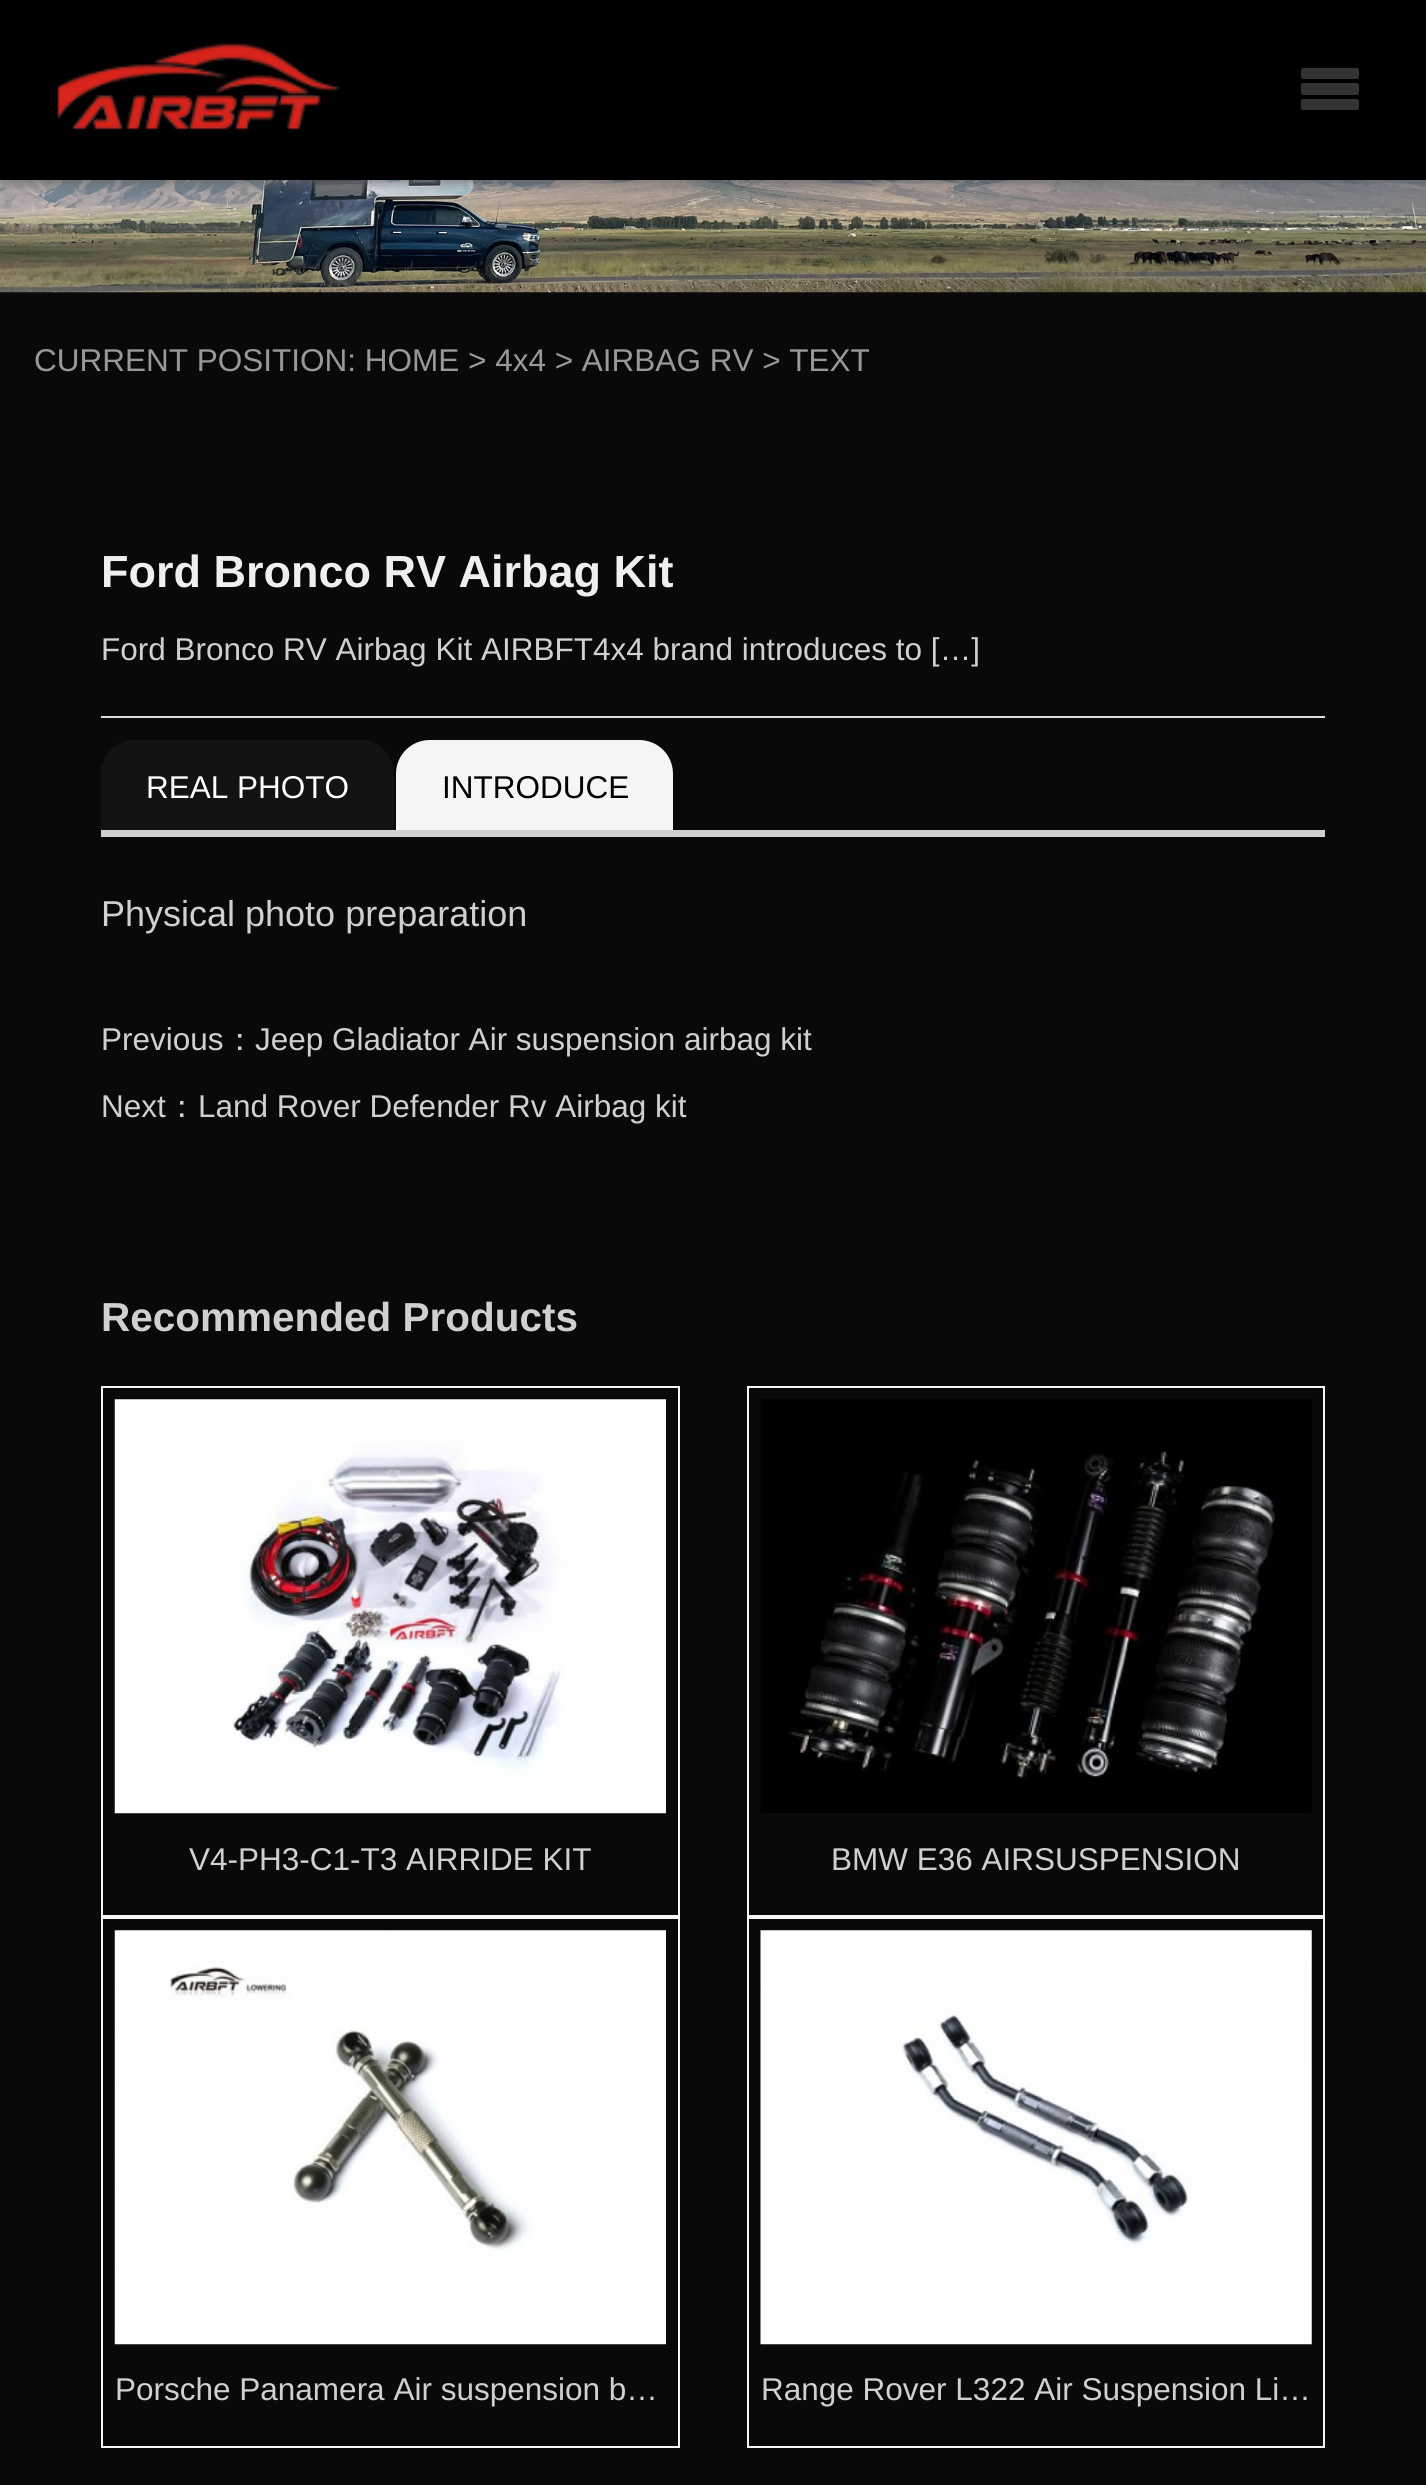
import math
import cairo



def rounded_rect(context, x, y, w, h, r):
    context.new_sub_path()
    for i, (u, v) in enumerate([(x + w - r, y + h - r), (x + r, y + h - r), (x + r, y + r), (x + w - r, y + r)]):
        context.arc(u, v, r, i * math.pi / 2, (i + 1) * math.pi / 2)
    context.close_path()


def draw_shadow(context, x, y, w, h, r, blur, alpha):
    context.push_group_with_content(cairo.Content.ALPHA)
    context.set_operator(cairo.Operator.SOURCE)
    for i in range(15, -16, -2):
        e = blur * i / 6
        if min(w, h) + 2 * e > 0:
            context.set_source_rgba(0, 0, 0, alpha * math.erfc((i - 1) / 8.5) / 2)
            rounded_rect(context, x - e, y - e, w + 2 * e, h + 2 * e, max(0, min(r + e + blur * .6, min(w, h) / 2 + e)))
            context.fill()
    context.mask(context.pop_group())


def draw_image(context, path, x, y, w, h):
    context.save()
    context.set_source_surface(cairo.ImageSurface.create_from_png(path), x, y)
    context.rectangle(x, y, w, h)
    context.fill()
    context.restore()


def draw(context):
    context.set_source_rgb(9 / 255, 9 / 255, 9 / 255)
    context.paint()
    draw_image(context, "images/2.png", 0, 180, 1426, 113)
    context.set_source_rgb(102 / 255, 102 / 255, 102 / 255)
    draw_shadow(context, 2, 2, 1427, 180, 0, 9, 1)
    context.set_source_rgb(0, 0, 0)
    context.rectangle(0, 0, 1426, 180)
    context.fill()
    draw_image(context, "images/1.png", 57, 42, 284, 89)
    context.set_source_rgb(51 / 255, 51 / 255, 51 / 255)
    rounded_rect(context, 1301, 68, 58, 11, 2)
    context.fill()
    rounded_rect(context, 1301, 83, 58, 12, 2)
    context.fill()
    rounded_rect(context, 1301, 99, 58, 11, 2)
    context.fill()
    context.set_source_rgb(222 / 255, 222 / 255, 222 / 255)
    context.rectangle(101, 716, 1224, 2)
    context.fill()
    context.set_source_rgb(210 / 255, 207 / 255, 207 / 255)
    context.rectangle(101, 830, 1224, 7)
    context.fill()
    context.set_source_rgb(19 / 255, 19 / 255, 19 / 255)
    context.new_path()
    context.move_to(135, 740)
    context.line_to(360, 740)
    context.curve_to(379, 740, 394, 755, 394, 774)
    context.line_to(394, 830)
    context.line_to(101, 830)
    context.line_to(101, 774)
    context.curve_to(101, 755, 116, 740, 135, 740)
    context.close_path()
    context.fill()
    context.set_source_rgb(245 / 255, 245 / 255, 245 / 255)
    context.new_path()
    context.move_to(430, 740)
    context.line_to(639, 740)
    context.curve_to(658, 740, 673, 755, 673, 774)
    context.line_to(673, 830)
    context.line_to(396, 830)
    context.line_to(396, 774)
    context.curve_to(396, 755, 411, 740, 430, 740)
    context.close_path()
    context.fill()
    context.rectangle(102, 1387, 577, 529)
    context.set_source_rgb(246 / 255, 246 / 255, 246 / 255)
    context.stroke()
    draw_image(context, "images/3.png", 114, 1399, 552, 415)
    context.rectangle(748, 1387, 576, 529)
    context.stroke()
    draw_image(context, "images/4.png", 760, 1399, 552, 414)
    context.rectangle(102, 1918, 577, 529)
    context.stroke()
    draw_image(context, "images/5.png", 114, 1930, 552, 415)
    context.rectangle(748, 1918, 576, 529)
    context.stroke()
    draw_image(context, "images/6.png", 760, 1930, 552, 415)
    context.select_font_face("Liberation Sans")
    context.set_font_size(31.5)
    context.set_source_rgb(153 / 255, 153 / 255, 153 / 255)
    context.move_to(34, 371)
    context.show_text("CURRENT POSITION: HOME > 4x4 > AIRBAG RV > TEXT")
    context.select_font_face("Liberation Sans", cairo.FontSlant.NORMAL, cairo.FontWeight.BOLD)
    context.set_font_size(45)
    context.set_source_rgb(239 / 255, 239 / 255, 239 / 255)
    context.move_to(101, 587)
    context.show_text("Ford Bronco RV Airbag Kit")
    context.select_font_face("Liberation Sans")
    context.set_font_size(31.5)
    context.set_source_rgb(210 / 255, 207 / 255, 207 / 255)
    context.move_to(101, 660)
    context.show_text("Ford Bronco RV Airbag Kit AIRBFT4x4 brand introduces to […]")
    context.set_source_rgb(1, 1, 1)
    context.move_to(146, 798)
    context.show_text("REAL PHOTO")
    context.set_source_rgb(0, 0, 0)
    context.move_to(442, 798)
    context.show_text("INTRODUCE")
    context.set_font_size(36)
    context.set_source_rgb(210 / 255, 207 / 255, 207 / 255)
    context.move_to(101, 926)
    context.show_text("Physical photo preparation")
    context.set_font_size(31.5)
    context.move_to(101, 1050)
    context.show_text("Previous")
    context.select_font_face("WenQuanYi Zen Hei Medium")
    context.move_to(224, 1050)
    context.show_text("：")
    context.select_font_face("Liberation Sans")
    context.move_to(255, 1050)
    context.show_text("Jeep Gladiator Air suspension airbag kit")
    context.move_to(101, 1117)
    context.show_text("Next")
    context.select_font_face("WenQuanYi Zen Hei Medium")
    context.move_to(166, 1117)
    context.show_text("：")
    context.select_font_face("Liberation Sans")
    context.move_to(198, 1117)
    context.show_text("Land Rover Defender Rv Airbag kit")
    context.select_font_face("Liberation Sans", cairo.FontSlant.NORMAL, cairo.FontWeight.BOLD)
    context.set_font_size(40.5)
    context.move_to(101, 1331)
    context.show_text("Recommended Products")
    context.select_font_face("Liberation Sans")
    context.set_font_size(31.5)
    context.move_to(189, 1870)
    context.show_text("V4-PH3-C1-T3 AIRRIDE KIT")
    context.move_to(831, 1870)
    context.show_text("BMW E36 AIRSUSPENSION")
    context.move_to(115, 2400)
    context.show_text("Porsche Panamera Air suspension b…")
    context.move_to(761, 2400)
    context.show_text("Range Rover L322 Air Suspension Li…")


surface = cairo.ImageSurface(cairo.Format.RGB24, 1426, 2485)
context = cairo.Context(surface)
options = cairo.FontOptions()
options.set_hint_metrics(cairo.HintMetrics.OFF)
options.set_hint_style(cairo.HintStyle.NONE)
context.set_font_options(options)
context.set_miter_limit(4)
draw(context)
surface.write_to_png("out.png")
